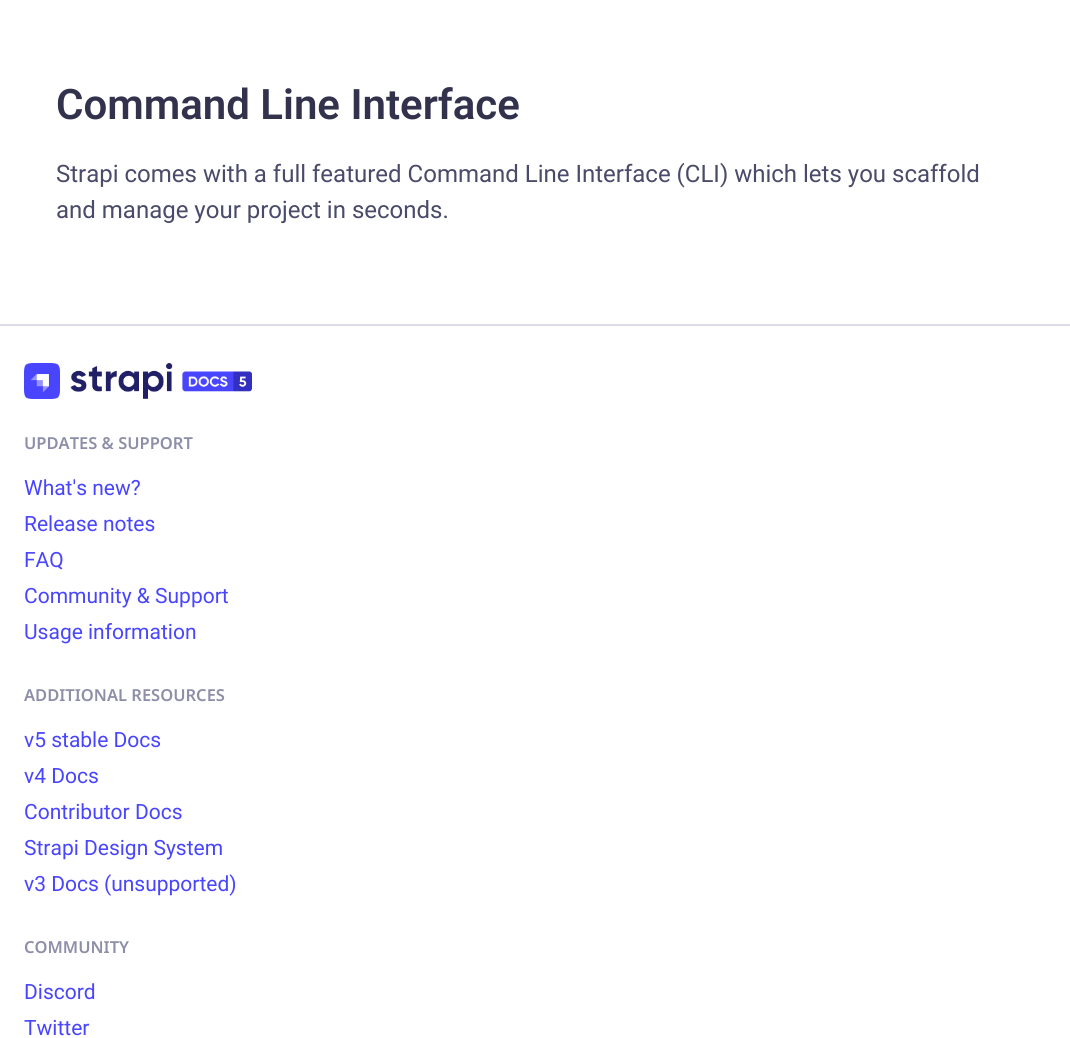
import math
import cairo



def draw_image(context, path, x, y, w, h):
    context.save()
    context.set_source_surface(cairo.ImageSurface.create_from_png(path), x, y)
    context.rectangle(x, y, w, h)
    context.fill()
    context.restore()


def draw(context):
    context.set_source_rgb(1, 1, 1)
    context.paint()
    context.set_source_rgb(220 / 255, 220 / 255, 228 / 255)
    context.rectangle(0, 324, 1070, 2)
    context.fill()
    draw_image(context, "images/1.png", 24, 363, 228, 36)
    context.select_font_face("Roboto SemiBold")
    context.set_font_size(42)
    context.set_source_rgb(50 / 255, 50 / 255, 77 / 255)
    context.move_to(56, 119)
    context.show_text("Command Line Interface")
    context.select_font_face("Roboto")
    context.set_font_size(24)
    context.set_source_rgb(74 / 255, 74 / 255, 106 / 255)
    context.move_to(56, 182)
    context.show_text("Strapi comes with a full featured Command Line Interface (CLI) which lets you scaffold")
    context.move_to(56, 218)
    context.show_text("and manage your project in seconds.")
    context.select_font_face("Noto Sans SemiBold")
    context.set_font_size(16.5)
    context.set_source_rgb(142 / 255, 142 / 255, 169 / 255)
    context.move_to(24, 449)
    context.show_text("UPDATES & SUPPORT")
    context.select_font_face("Roboto")
    context.set_font_size(21)
    context.set_source_rgb(73 / 255, 69 / 255, 1)
    context.move_to(24, 495)
    context.show_text("What's new?")
    context.move_to(24, 531)
    context.show_text("Release notes")
    context.move_to(24, 567)
    context.show_text("FAQ")
    context.move_to(24, 603)
    context.show_text("Community & Support")
    context.move_to(24, 639)
    context.show_text("Usage information")
    context.select_font_face("Noto Sans SemiBold")
    context.set_font_size(16.5)
    context.set_source_rgb(142 / 255, 142 / 255, 169 / 255)
    context.move_to(24, 701)
    context.show_text("ADDITIONAL RESOURCES")
    context.select_font_face("Roboto")
    context.set_font_size(21)
    context.set_source_rgb(73 / 255, 69 / 255, 1)
    context.move_to(24, 747)
    context.show_text("v5 stable Docs")
    context.move_to(24, 783)
    context.show_text("v4 Docs")
    context.move_to(24, 819)
    context.show_text("Contributor Docs")
    context.move_to(24, 855)
    context.show_text("Strapi Design System")
    context.move_to(24, 891)
    context.show_text("v3 Docs (unsupported)")
    context.select_font_face("Noto Sans SemiBold")
    context.set_font_size(16.5)
    context.set_source_rgb(142 / 255, 142 / 255, 169 / 255)
    context.move_to(24, 953)
    context.show_text("COMMUNITY")
    context.select_font_face("Roboto")
    context.set_font_size(21)
    context.set_source_rgb(73 / 255, 69 / 255, 1)
    context.move_to(24, 999)
    context.show_text("Discord")
    context.move_to(24, 1035)
    context.show_text("Twitter")


surface = cairo.ImageSurface(cairo.Format.RGB24, 1070, 1038)
context = cairo.Context(surface)
options = cairo.FontOptions()
options.set_hint_metrics(cairo.HintMetrics.OFF)
options.set_hint_style(cairo.HintStyle.NONE)
context.set_font_options(options)
context.set_miter_limit(4)
draw(context)
surface.write_to_png("out.png")
